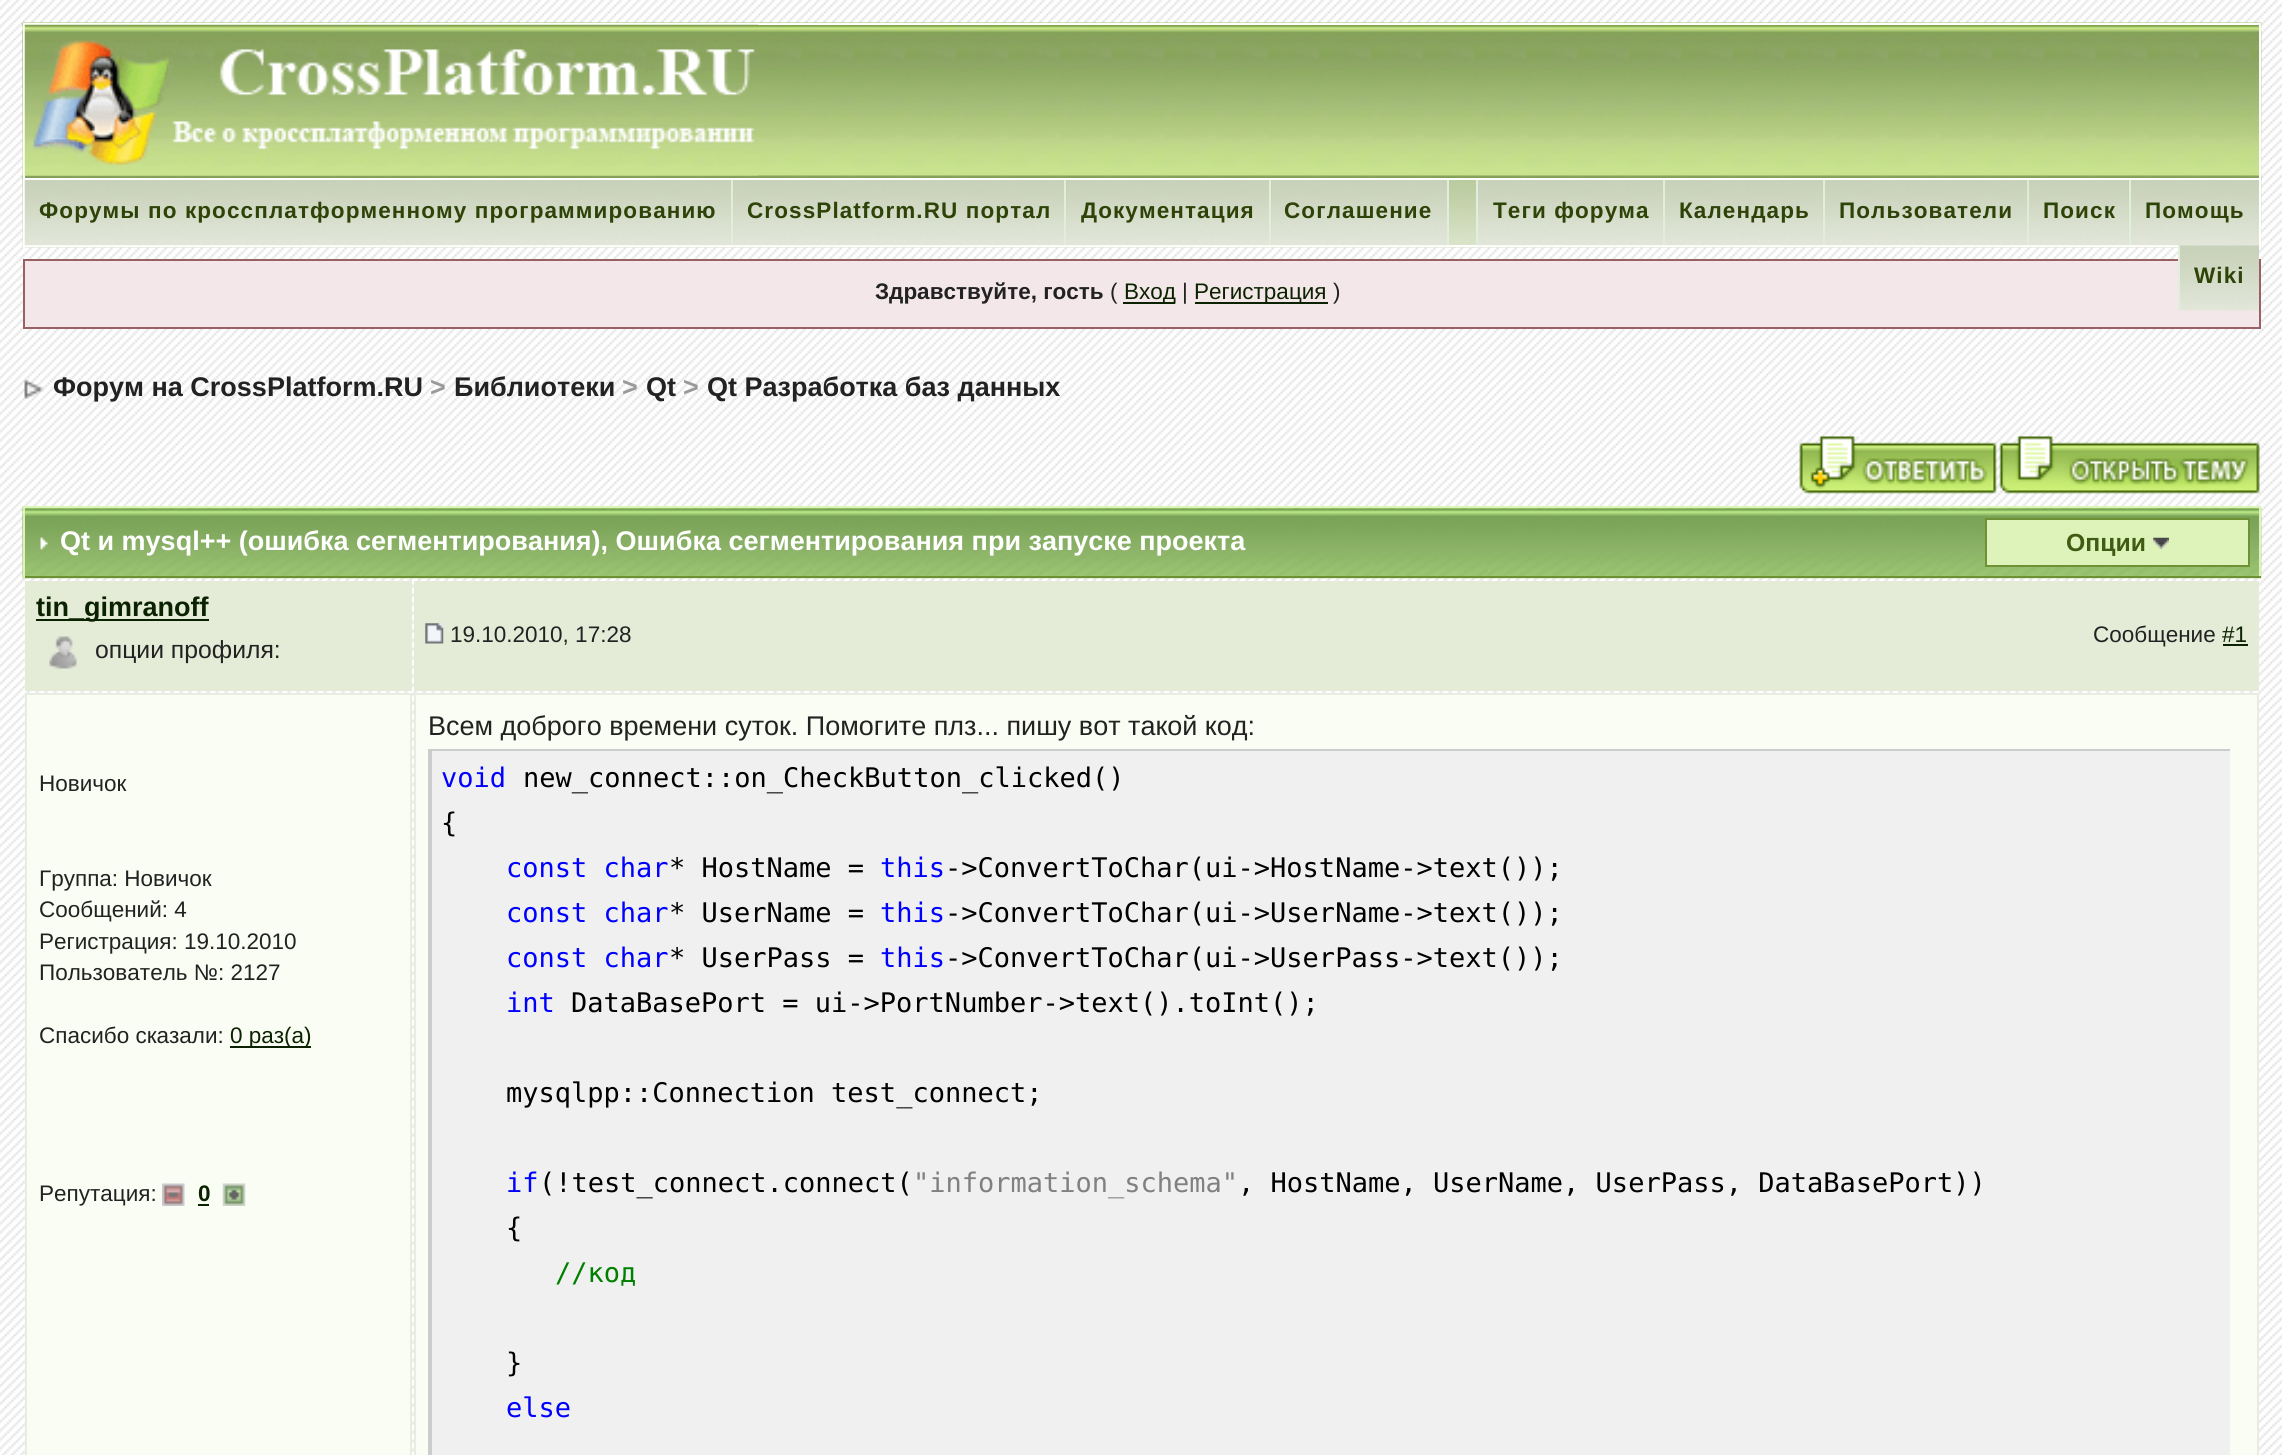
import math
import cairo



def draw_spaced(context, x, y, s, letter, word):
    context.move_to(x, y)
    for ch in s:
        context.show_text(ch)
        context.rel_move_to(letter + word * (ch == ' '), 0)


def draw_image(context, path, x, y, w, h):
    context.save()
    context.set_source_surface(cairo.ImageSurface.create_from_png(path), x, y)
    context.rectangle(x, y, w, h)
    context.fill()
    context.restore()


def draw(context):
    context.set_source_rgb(1, 1, 1)
    context.paint()
    draw_image(context, "images/1.png", 0, 0, 2282, 1455)
    draw_image(context, "images/2.png", 22, 22, 2240, 158)
    context.rectangle(24, 24, 2236, 155)
    context.set_source_rgb(1, 1, 1)
    context.stroke()
    draw_image(context, "images/3.png", 24, 24, 735, 152)
    draw_image(context, "images/4.png", 22, 180, 2240, 68)
    context.rectangle(2259, 180, 2, 68)
    context.fill()
    context.rectangle(23, 245, 2238, 2)
    context.fill()
    context.rectangle(23, 180, 2, 68)
    context.fill()
    draw_image(context, "images/5.png", 24, 180, 710, 66)
    context.set_source_rgb(226 / 255, 238 / 255, 220 / 255)
    context.rectangle(731, 180, 2, 65)
    context.fill()
    draw_image(context, "images/6.png", 733, 180, 334, 66)
    context.rectangle(1064, 180, 2, 65)
    context.fill()
    draw_image(context, "images/7.png", 1066, 180, 206, 66)
    context.rectangle(1269, 180, 2, 65)
    context.fill()
    draw_image(context, "images/8.png", 1271, 180, 178, 66)
    context.rectangle(1447, 180, 2, 65)
    context.fill()
    draw_image(context, "images/13.png", 2128, 180, 131, 66)
    draw_image(context, "images/12.png", 2027, 180, 102, 66)
    context.rectangle(2027, 180, 2, 65)
    context.fill()
    draw_image(context, "images/11.png", 1822, 180, 206, 66)
    draw_image(context, "images/10.png", 1662, 180, 161, 66)
    draw_image(context, "images/9.png", 1476, 180, 187, 66)
    context.rectangle(1476, 180, 2, 65)
    context.fill()
    context.rectangle(1663, 180, 2, 65)
    context.fill()
    context.rectangle(1823, 180, 2, 65)
    context.fill()
    context.rectangle(2129, 180, 2, 65)
    context.fill()
    context.set_source_rgb(244 / 255, 231 / 255, 234 / 255)
    context.rectangle(24, 260, 2236, 68)
    context.fill_preserve()
    context.set_source_rgb(152 / 255, 98 / 255, 101 / 255)
    context.stroke()
    draw_image(context, "images/14.png", 2180, 245, 79, 66)
    context.set_source_rgb(226 / 255, 238 / 255, 220 / 255)
    context.rectangle(2178, 245, 2, 66)
    context.fill()
    context.set_source_rgb(11 / 255, 34 / 255, 0)
    context.rectangle(1123, 302, 52, 2)
    context.fill()
    context.rectangle(1195, 302, 133, 2)
    context.fill()
    draw_image(context, "images/15.png", 24, 379, 20, 20)
    draw_image(context, "images/16.png", 1797, 434, 200, 60)
    draw_image(context, "images/17.png", 1999, 436, 261, 58)
    draw_image(context, "images/18.png", 22, 506, 2240, 73)
    context.set_source_rgb(221 / 255, 243 / 255, 186 / 255)
    context.rectangle(23, 506, 2238, 2)
    context.fill()
    context.rectangle(2259, 506, 2, 72)
    context.fill()
    context.set_source_rgb(110 / 255, 145 / 255, 52 / 255)
    context.rectangle(23, 576, 2238, 2)
    context.fill()
    context.set_source_rgb(221 / 255, 243 / 255, 186 / 255)
    context.rectangle(23, 506, 2, 72)
    context.fill()
    draw_image(context, "images/19.png", 40, 537, 8, 13)
    context.rectangle(1986, 519, 263, 47)
    context.fill_preserve()
    context.set_source_rgb(110 / 255, 145 / 255, 52 / 255)
    context.stroke()
    draw_image(context, "images/20.png", 2153, 537, 16, 12)
    context.set_source_rgb(228 / 255, 235 / 255, 215 / 255)
    context.rectangle(25, 581, 387, 110)
    context.fill()
    context.set_source_rgb(11 / 255, 34 / 255, 0)
    context.rectangle(36, 619, 173, 2)
    context.fill()
    draw_image(context, "images/21.png", 49, 636, 28, 33)
    context.set_source_rgb(228 / 255, 235 / 255, 215 / 255)
    context.rectangle(414, 581, 1845, 110)
    context.fill()
    draw_image(context, "images/22.png", 425, 623, 19, 21)
    context.set_source_rgb(11 / 255, 34 / 255, 0)
    context.rectangle(2223, 644, 25, 2)
    context.fill()
    context.set_source_rgb(250 / 255, 253 / 255, 243 / 255)
    context.rectangle(26, 694, 385, 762)
    context.fill_preserve()
    context.set_source_rgb(232 / 255, 237 / 255, 224 / 255)
    context.stroke()
    context.set_source_rgb(11 / 255, 34 / 255, 0)
    context.rectangle(230, 1046, 81, 2)
    context.fill()
    draw_image(context, "images/23.png", 162, 1183, 23, 23)
    context.rectangle(198, 1204, 11, 2)
    context.fill()
    draw_image(context, "images/24.png", 222, 1183, 24, 23)
    context.set_source_rgb(250 / 255, 253 / 255, 243 / 255)
    context.rectangle(415, 694, 1843, 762)
    context.fill_preserve()
    context.set_source_rgb(232 / 255, 237 / 255, 224 / 255)
    context.stroke()
    context.set_source_rgb(240 / 255, 240 / 255, 240 / 255)
    context.rectangle(432, 751, 1798, 704)
    context.fill()
    context.set_source_rgb(204 / 255, 204 / 255, 204 / 255)
    context.rectangle(428, 749, 2, 706)
    context.fill()
    context.save()
    context.rectangle(430, 749, 1800, 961)
    context.clip()
    context.rectangle(431, 750, 1802, 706)
    context.stroke()
    context.restore()
    context.select_font_face("Liberation Sans", cairo.FontSlant.NORMAL, cairo.FontWeight.BOLD)
    context.set_font_size(22.5)
    context.set_source_rgb(46 / 255, 67 / 255, 8 / 255)
    draw_spaced(context, 39, 218, "Форумы по кроссплатформенному программированию", 1.1, 0)
    draw_spaced(context, 747, 218, "CrossPlatform.RU портал", 1.1, 0)
    draw_spaced(context, 1081, 218, "Документация", 1.1, 0)
    draw_spaced(context, 1284, 218, "Соглашение", 1.1, 0)
    draw_spaced(context, 1493, 218, "Теги форума", 1.1, 0)
    draw_spaced(context, 1679, 218, "Календарь", 1.1, 0)
    draw_spaced(context, 1839, 218, "Пользователи", 1.1, 0)
    draw_spaced(context, 2043, 218, "Поиск", 1.1, 0)
    draw_spaced(context, 2145, 218, "Помощь", 1.1, 0)
    draw_spaced(context, 2194, 283, "Wiki", 1.1, 0)
    context.set_source_rgb(34 / 255, 34 / 255, 34 / 255)
    context.move_to(875, 299)
    context.show_text("Здравствуйте, гость")
    context.select_font_face("Liberation Sans")
    context.move_to(1110, 299)
    context.show_text("(")
    context.set_source_rgb(11 / 255, 34 / 255, 0)
    context.move_to(1124, 299)
    context.show_text("Вход")
    context.set_source_rgb(34 / 255, 34 / 255, 34 / 255)
    context.move_to(1182, 299)
    context.show_text("|")
    context.set_source_rgb(11 / 255, 34 / 255, 0)
    context.move_to(1194, 299)
    context.show_text("Регистрация")
    context.set_source_rgb(34 / 255, 34 / 255, 34 / 255)
    context.move_to(1333, 299)
    context.show_text(")")
    context.select_font_face("Liberation Sans", cairo.FontSlant.NORMAL, cairo.FontWeight.BOLD)
    context.set_font_size(27)
    context.move_to(53, 396)
    context.show_text("Форум на CrossPlatform.RU")
    context.set_source_rgb(153 / 255, 153 / 255, 153 / 255)
    context.move_to(430, 396)
    context.show_text(">")
    context.set_source_rgb(34 / 255, 34 / 255, 34 / 255)
    context.move_to(454, 396)
    context.show_text("Библиотеки")
    context.set_source_rgb(153 / 255, 153 / 255, 153 / 255)
    context.move_to(622, 396)
    context.show_text(">")
    context.set_source_rgb(34 / 255, 34 / 255, 34 / 255)
    context.move_to(646, 396)
    context.show_text("Qt")
    context.set_source_rgb(153 / 255, 153 / 255, 153 / 255)
    context.move_to(683, 396)
    context.show_text(">")
    context.set_source_rgb(34 / 255, 34 / 255, 34 / 255)
    context.move_to(707, 396)
    context.show_text("Qt Разработка баз данных")
    context.set_source_rgb(1, 1, 1)
    context.move_to(60, 550)
    context.show_text("Qt и mysql++ (ошибка сегментирования), Ошибка сегментирования при запуске проекта")
    context.set_font_size(24.75)
    context.set_source_rgb(64 / 255, 91 / 255, 19 / 255)
    context.move_to(2066, 551)
    context.show_text("Опции")
    context.set_font_size(27)
    context.set_source_rgb(11 / 255, 34 / 255, 0)
    context.move_to(36, 616)
    context.show_text("tin_gimranoff")
    context.select_font_face("Liberation Sans")
    context.set_font_size(24.75)
    context.set_source_rgb(34 / 255, 34 / 255, 34 / 255)
    context.move_to(95, 658)
    context.show_text("опции профиля:")
    context.set_font_size(22.5)
    context.move_to(450, 642)
    context.show_text("19.10.2010, 17:28")
    context.move_to(2093, 642)
    context.show_text("Сообщение")
    context.set_source_rgb(11 / 255, 34 / 255, 0)
    context.move_to(2222, 642)
    context.show_text("#1")
    context.set_source_rgb(34 / 255, 34 / 255, 34 / 255)
    context.move_to(39, 791)
    context.show_text("Новичок")
    context.move_to(39, 886)
    context.show_text("Группа: Новичок")
    context.move_to(39, 917)
    context.show_text("Сообщений: 4")
    context.move_to(39, 949)
    context.show_text("Регистрация: 19.10.2010")
    context.move_to(39, 980)
    context.show_text("Пользователь №: 2127")
    context.move_to(39, 1043)
    context.show_text("Спасибо сказали:")
    context.set_source_rgb(11 / 255, 34 / 255, 0)
    context.move_to(230, 1043)
    context.show_text("0 раз(а)")
    context.set_source_rgb(34 / 255, 34 / 255, 34 / 255)
    context.move_to(39, 1201)
    context.show_text("Репутация:")
    context.select_font_face("Liberation Sans", cairo.FontSlant.NORMAL, cairo.FontWeight.BOLD)
    context.set_source_rgb(11 / 255, 34 / 255, 0)
    context.move_to(198, 1201)
    context.show_text("0")
    context.select_font_face("Liberation Sans")
    context.set_font_size(27)
    context.set_source_rgb(34 / 255, 34 / 255, 34 / 255)
    context.move_to(428, 735)
    context.show_text("Всем доброго времени суток. Помогите плз... пишу вот такой код:")
    context.select_font_face("DejaVu Sans Mono")
    context.set_source_rgb(0, 0, 1)
    context.move_to(441, 787)
    context.show_text("void")
    context.set_source_rgb(0, 0, 0)
    context.move_to(523, 787)
    context.show_text("new_connect::on_CheckButton_clicked()")
    context.move_to(441, 832)
    context.show_text("{")
    context.set_source_rgb(0, 0, 1)
    context.move_to(506, 877)
    context.show_text("const char")
    context.set_source_rgb(0, 0, 0)
    context.move_to(669, 877)
    context.show_text("* HostName =")
    context.set_source_rgb(0, 0, 1)
    context.move_to(880, 877)
    context.show_text("this")
    context.set_source_rgb(0, 0, 0)
    context.move_to(945, 877)
    context.show_text("->ConvertToChar(ui->HostName->text());")
    context.set_source_rgb(0, 0, 1)
    context.move_to(506, 922)
    context.show_text("const char")
    context.set_source_rgb(0, 0, 0)
    context.move_to(669, 922)
    context.show_text("* UserName =")
    context.set_source_rgb(0, 0, 1)
    context.move_to(880, 922)
    context.show_text("this")
    context.set_source_rgb(0, 0, 0)
    context.move_to(945, 922)
    context.show_text("->ConvertToChar(ui->UserName->text());")
    context.set_source_rgb(0, 0, 1)
    context.move_to(506, 967)
    context.show_text("const char")
    context.set_source_rgb(0, 0, 0)
    context.move_to(669, 967)
    context.show_text("* UserPass =")
    context.set_source_rgb(0, 0, 1)
    context.move_to(880, 967)
    context.show_text("this")
    context.set_source_rgb(0, 0, 0)
    context.move_to(945, 967)
    context.show_text("->ConvertToChar(ui->UserPass->text());")
    context.set_source_rgb(0, 0, 1)
    context.move_to(506, 1012)
    context.show_text("int")
    context.set_source_rgb(0, 0, 0)
    context.move_to(571, 1012)
    context.show_text("DataBasePort = ui->PortNumber->text().toInt();")
    context.move_to(506, 1102)
    context.show_text("mysqlpp::Connection test_connect;")
    context.set_source_rgb(0, 0, 1)
    context.move_to(506, 1192)
    context.show_text("if")
    context.set_source_rgb(0, 0, 0)
    context.move_to(539, 1192)
    context.show_text("(!test_connect.connect(")
    context.set_source_rgb(128 / 255, 128 / 255, 128 / 255)
    context.move_to(913, 1192)
    context.show_text("\"information_schema\"")
    context.set_source_rgb(0, 0, 0)
    context.move_to(1238, 1192)
    context.show_text(", HostName, UserName, UserPass, DataBasePort))")
    context.move_to(506, 1237)
    context.show_text("{")
    context.set_source_rgb(0, 128 / 255, 0)
    context.move_to(555, 1282)
    context.show_text("//код")
    context.set_source_rgb(0, 0, 0)
    context.move_to(506, 1372)
    context.show_text("}")
    context.set_source_rgb(0, 0, 1)
    context.move_to(506, 1417)
    context.show_text("else")


surface = cairo.ImageSurface(cairo.Format.RGB24, 2282, 1455)
context = cairo.Context(surface)
options = cairo.FontOptions()
options.set_hint_metrics(cairo.HintMetrics.OFF)
options.set_hint_style(cairo.HintStyle.NONE)
context.set_font_options(options)
context.set_miter_limit(4)
draw(context)
surface.write_to_png("out.png")
